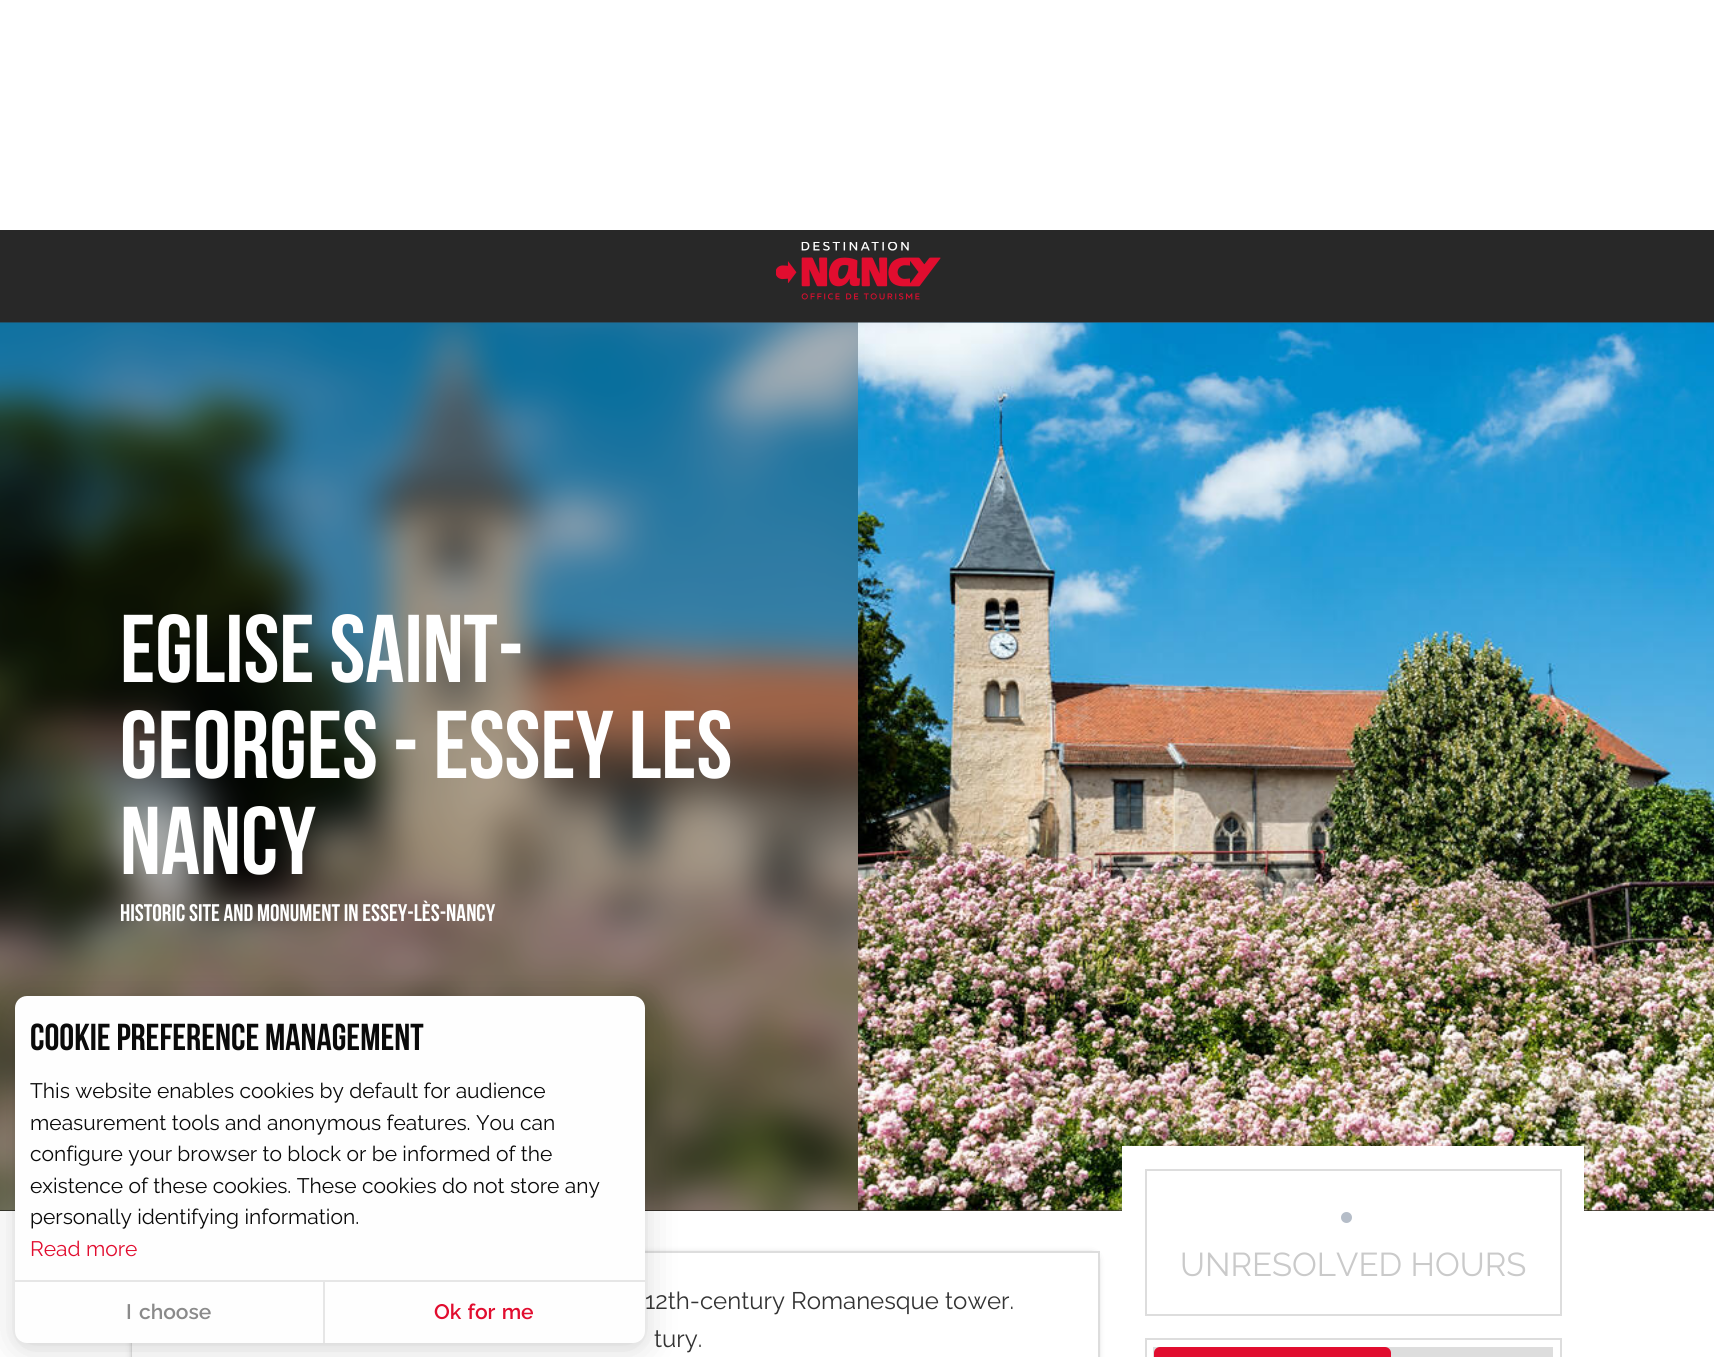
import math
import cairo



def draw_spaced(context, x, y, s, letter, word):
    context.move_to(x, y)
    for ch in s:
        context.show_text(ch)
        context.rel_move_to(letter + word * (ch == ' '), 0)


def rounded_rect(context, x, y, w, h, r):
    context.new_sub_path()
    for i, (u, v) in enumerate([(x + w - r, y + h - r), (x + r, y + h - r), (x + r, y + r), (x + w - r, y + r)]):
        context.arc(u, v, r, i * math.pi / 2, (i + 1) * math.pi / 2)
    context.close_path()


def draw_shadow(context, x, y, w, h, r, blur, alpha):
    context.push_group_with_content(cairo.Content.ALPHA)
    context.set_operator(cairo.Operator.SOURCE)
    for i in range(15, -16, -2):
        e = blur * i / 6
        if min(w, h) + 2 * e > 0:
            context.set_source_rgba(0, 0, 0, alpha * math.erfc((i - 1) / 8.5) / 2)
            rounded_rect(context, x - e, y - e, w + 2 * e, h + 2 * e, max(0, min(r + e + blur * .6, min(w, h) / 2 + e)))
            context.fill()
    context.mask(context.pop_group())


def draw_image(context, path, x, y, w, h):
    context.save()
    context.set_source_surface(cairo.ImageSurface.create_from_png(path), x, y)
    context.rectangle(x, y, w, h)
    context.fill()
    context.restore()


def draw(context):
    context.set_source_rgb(1, 1, 1)
    context.paint()
    context.set_source_rgb(40 / 255, 40 / 255, 40 / 255)
    context.rectangle(0, 230, 1714, 93)
    context.fill()
    draw_image(context, "images/1.png", 776, 242, 165, 58)
    context.set_source_rgb(0, 0, 0)
    context.rectangle(0, 323, 1714, 888)
    context.fill()
    draw_image(context, "images/2.png", 0, 322, 1714, 889)
    draw_image(context, "images/3.png", 858, 322, 856, 889)
    context.set_source_rgb(1, 1, 1)
    context.rectangle(1122, 1146, 462, 65)
    context.fill()
    context.rectangle(1146, 1170, 415, 145)
    context.set_source_rgb(221 / 255, 221 / 255, 221 / 255)
    context.stroke()
    context.set_source_rgb(181 / 255, 189 / 255, 200 / 255)
    context.arc(1346.5, 1217.5, 5.5, 0, 2 * math.pi)
    context.fill()
    context.rectangle(1146, 1339, 415, 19)
    context.set_source_rgb(221 / 255, 221 / 255, 221 / 255)
    context.stroke()
    context.rectangle(1153, 1347, 400, 10)
    context.fill()
    context.set_source_rgb(225 / 255, 13 / 255, 47 / 255)
    rounded_rect(context, 1154, 1347, 237, 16, 6)
    context.fill()
    context.set_source_rgb(0, 0, 0)
    draw_shadow(context, 138, 1259, 954, 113, 0, 5, 1)
    context.set_source_rgb(1, 1, 1)
    context.rectangle(1093, 1253, 5, 5)
    context.fill()
    context.rectangle(132, 1252, 967, 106)
    context.set_source_rgb(221 / 255, 221 / 255, 221 / 255)
    context.stroke()
    context.set_source_rgb(1, 1, 1)
    rounded_rect(context, 132, 1253, 966, 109, 5)
    context.fill()
    context.set_source_rgb(10 / 255, 10 / 255, 10 / 255)
    draw_shadow(context, 15, 999, 630, 347, 12, 4.5, 0.05)
    draw_shadow(context, 15, 1002, 630, 347, 12, 18, 0.15)
    context.set_source_rgb(254 / 255, 254 / 255, 254 / 255)
    rounded_rect(context, 15, 996, 630, 347, 12)
    context.fill()
    context.set_source_rgb(230 / 255, 230 / 255, 230 / 255)
    context.rectangle(15, 1280, 630, 2)
    context.fill()
    context.rectangle(323, 1281, 2, 62)
    context.fill()
    context.select_font_face("Bebas Neue", cairo.FontSlant.NORMAL, cairo.FontWeight.BOLD)
    context.set_font_size(96)
    context.set_source_rgb(1, 1, 1)
    context.move_to(120, 682)
    context.show_text("Eglise Saint-")
    context.move_to(120, 778)
    context.show_text("Georges - Essey les")
    context.move_to(120, 874)
    context.show_text("Nancy")
    context.set_font_size(24)
    context.move_to(120, 921)
    context.show_text("HISTORIC SITE AND MONUMENT IN ESSEY-LÈS-NANCY")
    context.select_font_face("Raleway")
    context.set_font_size(33)
    context.set_source_rgb(202 / 255, 202 / 255, 202 / 255)
    context.move_to(1180, 1276)
    context.show_text("UNRESOLVED HOURS")
    context.set_font_size(24)
    context.set_source_rgb(51 / 255, 51 / 255, 51 / 255)
    context.move_to(645, 1309)
    context.show_text("12th-century Romanesque tower.")
    context.move_to(654, 1347)
    context.show_text("tury.")
    context.select_font_face("Bebas Neue", cairo.FontSlant.NORMAL, cairo.FontWeight.BOLD)
    context.set_font_size(37.5)
    context.set_source_rgb(10 / 255, 10 / 255, 10 / 255)
    context.move_to(30, 1050)
    context.show_text("Cookie preference management")
    context.select_font_face("Raleway")
    context.set_font_size(21)
    context.move_to(30, 1098)
    context.show_text("This website enables cookies by default for audience")
    context.move_to(30, 1130)
    context.show_text("measurement tools and anonymous features. You can")
    context.move_to(30, 1161)
    context.show_text("configure your browser to block or be informed of the")
    context.move_to(30, 1193)
    context.show_text("existence of these cookies. These cookies do not store any")
    context.move_to(30, 1224)
    context.show_text("personally identifying information.")
    context.set_source_rgb(225 / 255, 13 / 255, 47 / 255)
    context.move_to(30, 1256)
    context.show_text("Read more")
    context.select_font_face("Raleway SemiBold")
    context.set_source_rgb(138 / 255, 138 / 255, 138 / 255)
    draw_spaced(context, 126, 1319, "I choose", 0, 2)
    context.set_source_rgb(225 / 255, 13 / 255, 47 / 255)
    draw_spaced(context, 434, 1319, "Ok for me", 0, 1)


surface = cairo.ImageSurface(cairo.Format.RGB24, 1714, 1357)
context = cairo.Context(surface)
options = cairo.FontOptions()
options.set_hint_metrics(cairo.HintMetrics.OFF)
options.set_hint_style(cairo.HintStyle.NONE)
context.set_font_options(options)
context.set_miter_limit(4)
draw(context)
surface.write_to_png("out.png")
